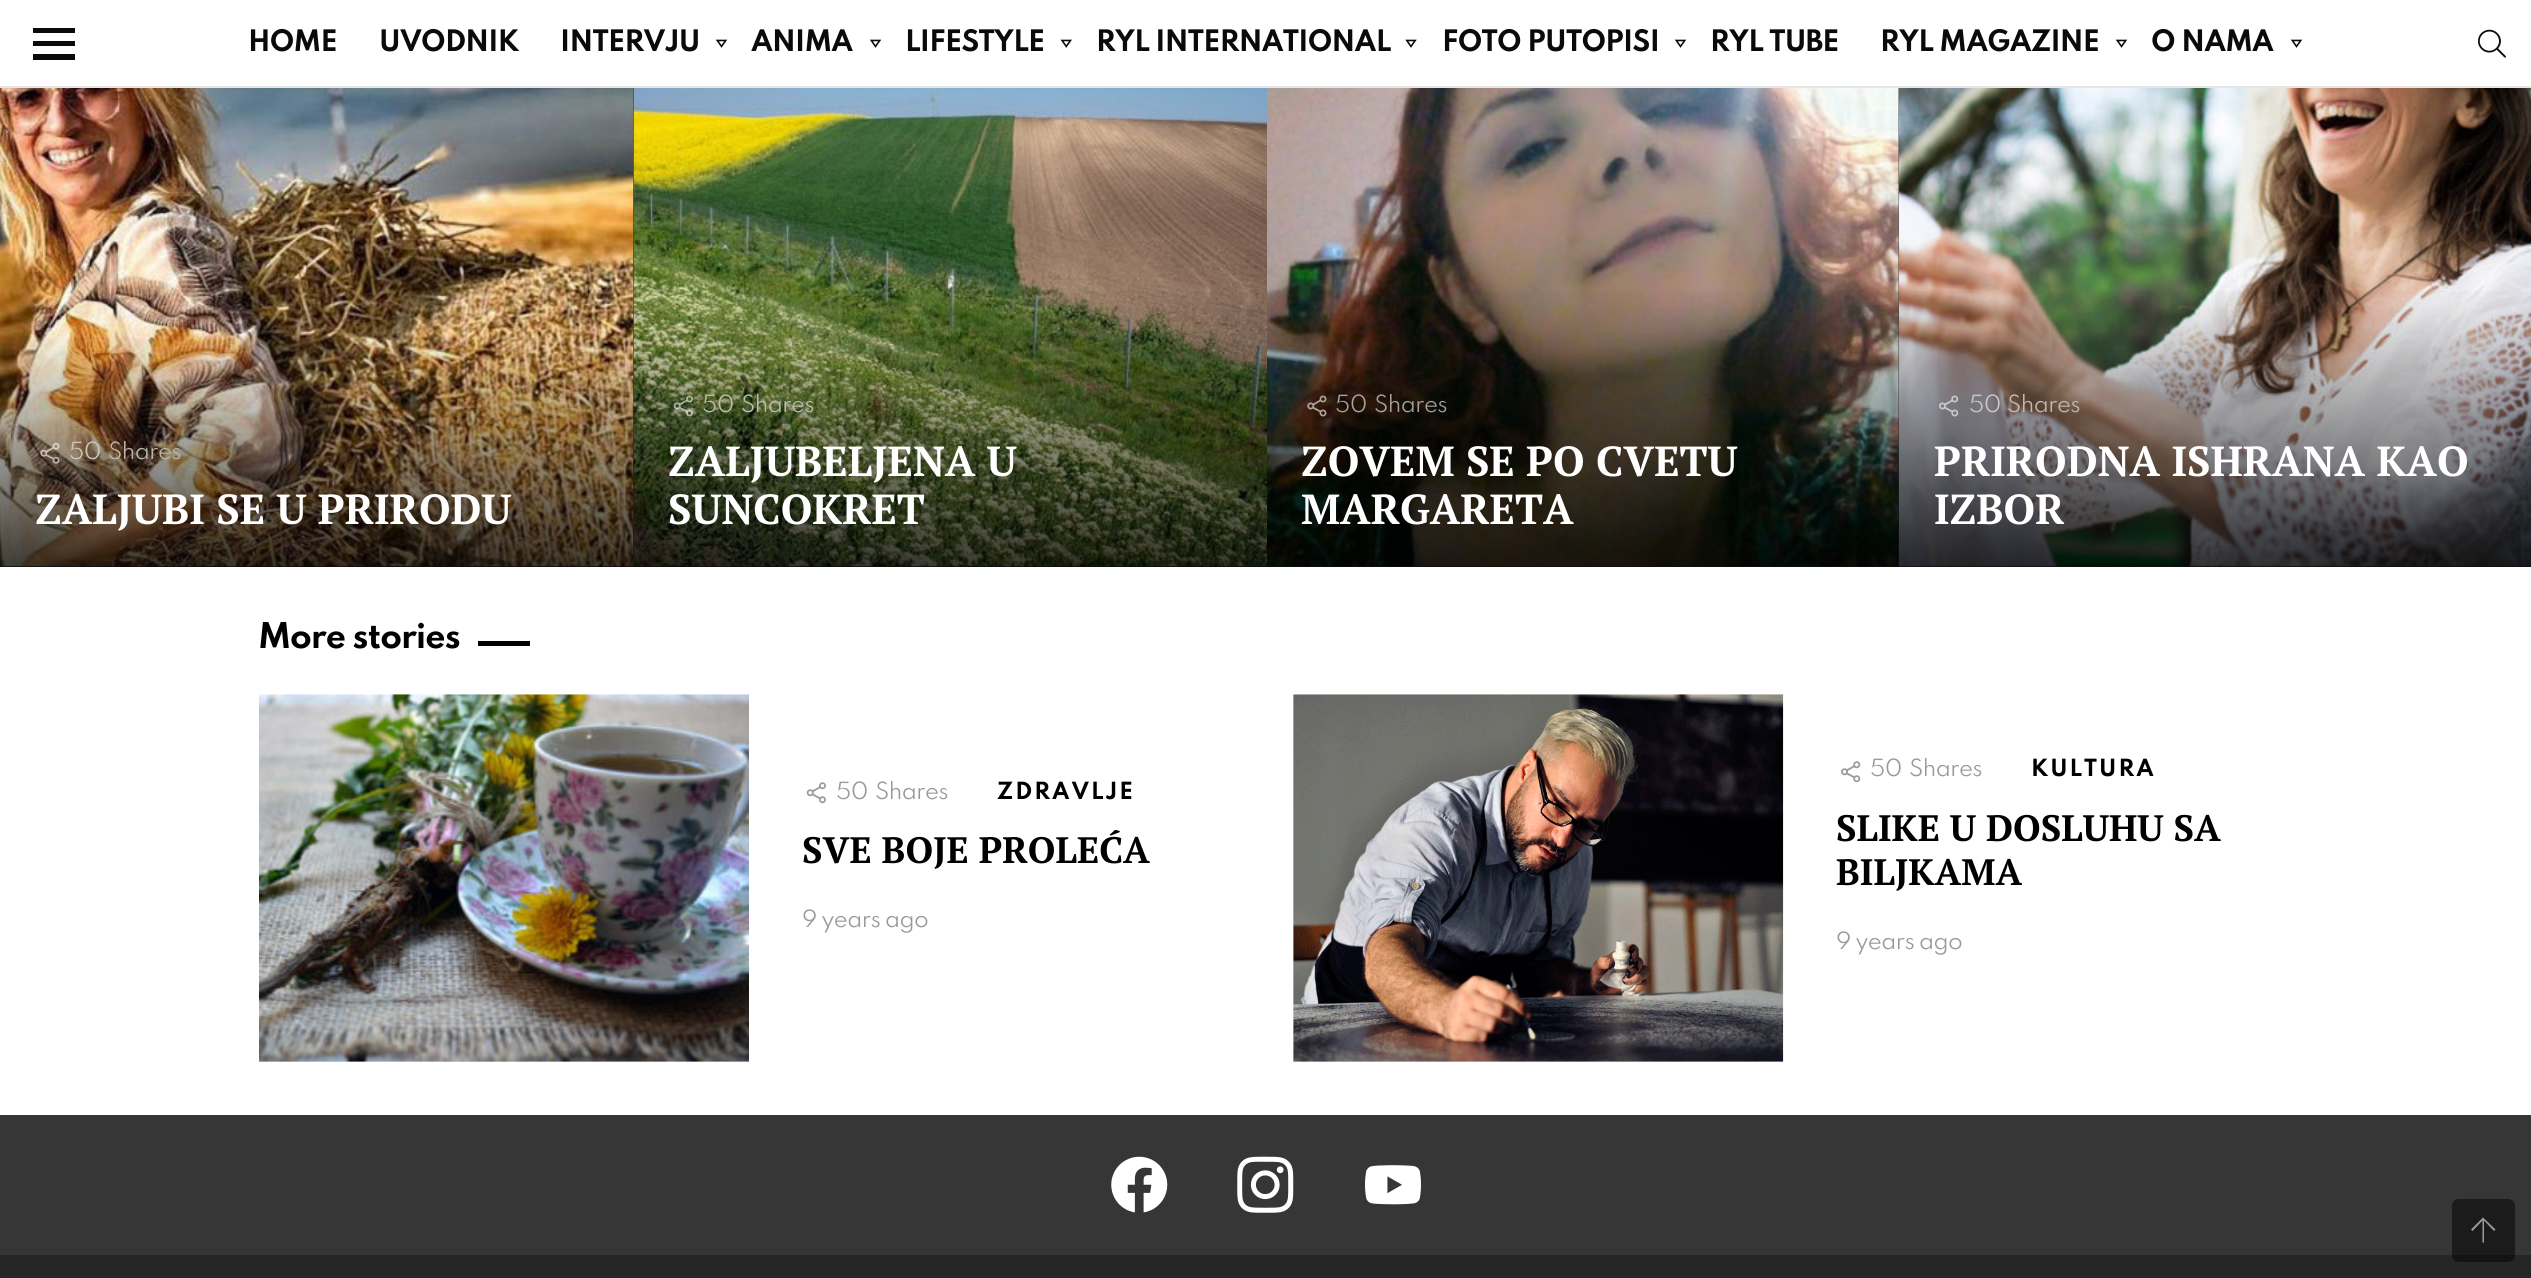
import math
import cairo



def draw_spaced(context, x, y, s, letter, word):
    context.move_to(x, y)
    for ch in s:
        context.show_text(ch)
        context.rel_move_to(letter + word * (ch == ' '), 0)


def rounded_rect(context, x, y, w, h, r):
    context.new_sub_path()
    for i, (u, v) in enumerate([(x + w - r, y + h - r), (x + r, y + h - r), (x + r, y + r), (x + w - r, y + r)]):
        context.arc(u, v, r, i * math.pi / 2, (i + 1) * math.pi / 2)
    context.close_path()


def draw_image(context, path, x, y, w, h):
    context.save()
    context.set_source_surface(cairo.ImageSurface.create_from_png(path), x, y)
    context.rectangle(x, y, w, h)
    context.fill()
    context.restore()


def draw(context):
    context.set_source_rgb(1, 1, 1)
    context.paint()
    context.set_source_rgb(10 / 255, 10 / 255, 10 / 255)
    context.new_path()
    context.move_to(33, 28)
    context.line_to(75, 28)
    context.line_to(75, 33)
    context.line_to(33, 33)
    context.close_path()
    context.move_to(33, 41)
    context.line_to(75, 41)
    context.line_to(75, 46)
    context.line_to(33, 46)
    context.close_path()
    context.move_to(33, 54)
    context.line_to(75, 54)
    context.line_to(75, 60)
    context.line_to(33, 60)
    context.close_path()
    context.fill()
    draw_image(context, "images/1.png", 715, 39, 13, 9)
    draw_image(context, "images/1.png", 869, 39, 13, 9)
    draw_image(context, "images/2.png", 1060, 39, 12, 9)
    draw_image(context, "images/3.png", 1405, 39, 12, 9)
    draw_image(context, "images/1.png", 1674, 39, 13, 9)
    draw_image(context, "images/1.png", 2115, 39, 13, 9)
    draw_image(context, "images/1.png", 2290, 39, 13, 9)
    draw_image(context, "images/4.png", 2478, 29, 28, 29)
    context.set_source_rgb(230 / 255, 230 / 255, 230 / 255)
    context.rectangle(0, 86, 2531, 2)
    context.fill()
    context.set_source_rgb(51 / 255, 51 / 255, 51 / 255)
    context.rectangle(0, 88, 634, 479)
    context.fill()
    draw_image(context, "images/5.png", 0, 88, 634, 479)
    context.rectangle(634, 566, 633, 1)
    context.fill()
    draw_image(context, "images/7.png", 633, 88, 634, 479)
    gradient = cairo.LinearGradient(317, 331, 317, 567)
    gradient.add_color_stop_rgba(0, 0, 0, 0, 0)
    gradient.add_color_stop_rgba(1, 0, 0, 0, 0.75)
    context.set_source(gradient)
    context.rectangle(0, 338, 634, 229)
    context.fill()
    draw_image(context, "images/6.png", 40, 442, 20, 22)
    gradient = cairo.LinearGradient(950, 283, 950, 567)
    gradient.add_color_stop_rgba(0, 0, 0, 0, 0)
    gradient.add_color_stop_rgba(1, 0, 0, 0, 0.75)
    context.set_source(gradient)
    context.rectangle(634, 291, 633, 276)
    context.fill()
    draw_image(context, "images/8.png", 673, 395, 20, 22)
    context.set_source_rgb(51 / 255, 51 / 255, 51 / 255)
    context.rectangle(1267, 88, 632, 479)
    context.fill()
    draw_image(context, "images/9.png", 1267, 88, 632, 479)
    context.rectangle(1899, 566, 632, 1)
    context.fill()
    draw_image(context, "images/11.png", 1898, 88, 633, 479)
    gradient = cairo.LinearGradient(1583, 283, 1583, 567)
    gradient.add_color_stop_rgba(0, 0, 0, 0, 0)
    gradient.add_color_stop_rgba(1, 0, 0, 0, 0.75)
    context.set_source(gradient)
    context.rectangle(1267, 291, 632, 276)
    context.fill()
    draw_image(context, "images/10.png", 1307, 395, 20, 22)
    gradient = cairo.LinearGradient(2216, 283, 2216, 567)
    gradient.add_color_stop_rgba(0, 0, 0, 0, 0)
    gradient.add_color_stop_rgba(1, 0, 0, 0, 0.75)
    context.set_source(gradient)
    context.rectangle(1899, 291, 632, 276)
    context.fill()
    draw_image(context, "images/12.png", 1939, 395, 20, 22)
    context.set_source_rgb(0, 0, 0)
    context.rectangle(478, 641, 52, 5)
    context.fill()
    context.set_source_rgb(230 / 255, 230 / 255, 230 / 255)
    context.rectangle(259, 1061, 490, 1)
    context.fill()
    draw_image(context, "images/13.png", 259, 694, 490, 368)
    draw_image(context, "images/14.png", 806, 782, 20, 22)
    context.rectangle(1293, 695, 490, 367)
    context.fill()
    draw_image(context, "images/15.png", 1293, 694, 491, 368)
    draw_image(context, "images/16.png", 1841, 761, 20, 22)
    context.set_source_rgb(54 / 255, 54 / 255, 54 / 255)
    context.rectangle(0, 1115, 2531, 140)
    context.fill()
    draw_image(context, "images/17.png", 1111, 1156, 57, 57)
    draw_image(context, "images/18.png", 1237, 1156, 57, 57)
    draw_image(context, "images/19.png", 1365, 1165, 56, 40)
    context.set_source_rgb(38 / 255, 38 / 255, 38 / 255)
    context.rectangle(0, 1255, 2531, 23)
    context.fill()
    context.set_source_rgba(0, 0, 0, 0.5)
    rounded_rect(context, 2452, 1199, 63, 63, 7)
    context.fill()
    context.set_source_rgb(155 / 255, 155 / 255, 155 / 255)
    context.new_path()
    context.move_to(2494, 1231)
    context.line_to(2484, 1220.5)
    context.line_to(2484, 1242.5)
    context.line_to(2482.5, 1242.5)
    context.line_to(2482.5, 1220.5)
    context.line_to(2472.5, 1231)
    context.line_to(2471, 1229.5)
    context.line_to(2483, 1217.5)
    context.line_to(2495.5, 1229.5)
    context.close_path()
    context.fill()
    context.select_font_face("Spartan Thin", cairo.FontSlant.NORMAL, cairo.FontWeight.BOLD)
    context.set_font_size(26.25)
    context.set_source_rgb(10 / 255, 10 / 255, 10 / 255)
    draw_spaced(context, 248, 51, "HOME", -0.75, 0)
    draw_spaced(context, 379, 51, "UVODNIK", -0.75, 0)
    draw_spaced(context, 560, 51, "INTERVJU", -0.75, 0)
    draw_spaced(context, 751, 51, "ANIMA", -0.75, 0)
    draw_spaced(context, 905, 51, "LIFESTYLE", -0.75, 0)
    draw_spaced(context, 1096, 51, "RYL INTERNATIONAL", -0.75, 0)
    draw_spaced(context, 1442, 51, "FOTO PUTOPISI", -0.75, 0)
    draw_spaced(context, 1710, 51, "RYL TUBE", -0.75, 0)
    draw_spaced(context, 1880, 51, "RYL MAGAZINE", -0.75, 0)
    draw_spaced(context, 2151, 51, "O NAMA", -0.75, 0)
    context.select_font_face("Spartan Thin")
    context.set_font_size(21)
    context.set_source_rgb(205 / 255, 197 / 255, 188 / 255)
    draw_spaced(context, 69, 459, "50", -0.6, 0)
    context.set_source_rgb(187 / 255, 180 / 255, 172 / 255)
    draw_spaced(context, 108, 459, "Shares", -0.6, 0)
    context.select_font_face("PT Serif", cairo.FontSlant.NORMAL, cairo.FontWeight.BOLD)
    context.set_font_size(42)
    context.set_source_rgb(1, 1, 1)
    context.move_to(35, 524)
    context.show_text("ZALJUBI SE U PRIRODU")
    context.select_font_face("Spartan Thin")
    context.set_font_size(21)
    context.set_source_rgb(184 / 255, 190 / 255, 171 / 255)
    draw_spaced(context, 702, 412, "50", -0.6, 0)
    draw_spaced(context, 741, 412, "Shares", -0.6, 0)
    context.select_font_face("PT Serif", cairo.FontSlant.NORMAL, cairo.FontWeight.BOLD)
    context.set_font_size(42)
    context.set_source_rgb(1, 1, 1)
    context.move_to(668, 476)
    context.show_text("ZALJUBELJENA U")
    context.move_to(668, 524)
    context.show_text("SUNCOKRET")
    context.select_font_face("Spartan Thin")
    context.set_font_size(21)
    context.set_source_rgb(167 / 255, 160 / 255, 157 / 255)
    draw_spaced(context, 1335, 412, "50", -0.6, 0)
    draw_spaced(context, 1374, 412, "Shares", -0.6, 0)
    context.select_font_face("PT Serif", cairo.FontSlant.NORMAL, cairo.FontWeight.BOLD)
    context.set_font_size(42)
    context.set_source_rgb(1, 1, 1)
    context.move_to(1301, 476)
    context.show_text("ZOVEM SE PO CVETU")
    context.move_to(1301, 524)
    context.show_text("MARGARETA")
    context.select_font_face("Spartan Thin")
    context.set_font_size(21)
    context.set_source_rgb(201 / 255, 199 / 255, 201 / 255)
    draw_spaced(context, 1969, 412, "50", -0.6, 0)
    context.set_source_rgb(194 / 255, 185 / 255, 179 / 255)
    draw_spaced(context, 2007, 412, "Shares", -0.6, 0)
    context.select_font_face("PT Serif", cairo.FontSlant.NORMAL, cairo.FontWeight.BOLD)
    context.set_font_size(42)
    context.set_source_rgb(1, 1, 1)
    context.move_to(1934, 476)
    context.show_text("PRIRODNA ISHRANA KAO")
    context.move_to(1934, 524)
    context.show_text("IZBOR")
    context.select_font_face("Spartan Thin", cairo.FontSlant.NORMAL, cairo.FontWeight.BOLD)
    context.set_font_size(31.5)
    context.set_source_rgb(0, 0, 0)
    draw_spaced(context, 258, 648, "More stories", -1, 0)
    context.select_font_face("Spartan Thin")
    context.set_font_size(21)
    context.set_source_rgb(153 / 255, 153 / 255, 153 / 255)
    draw_spaced(context, 836, 799, "50", -0.6, 0)
    draw_spaced(context, 875, 799, "Shares", -0.6, 0)
    context.select_font_face("Spartan Thin", cairo.FontSlant.NORMAL, cairo.FontWeight.BOLD)
    context.set_source_rgb(0, 0, 0)
    draw_spaced(context, 997, 799, "ZDRAVLJE", 2, 0)
    context.select_font_face("PT Serif", cairo.FontSlant.NORMAL, cairo.FontWeight.BOLD)
    context.set_font_size(36.75)
    context.move_to(802, 863)
    context.show_text("SVE BOJE PROLEĆA")
    context.select_font_face("Spartan Thin")
    context.set_font_size(21)
    context.set_source_rgb(153 / 255, 153 / 255, 153 / 255)
    draw_spaced(context, 802, 927, "9 years ago", -0.6, 0)
    draw_spaced(context, 1870, 776, "50", -0.6, 0)
    draw_spaced(context, 1909, 776, "Shares", -0.6, 0)
    context.select_font_face("Spartan Thin", cairo.FontSlant.NORMAL, cairo.FontWeight.BOLD)
    context.set_source_rgb(0, 0, 0)
    draw_spaced(context, 2031, 776, "KULTURA", 2, 0)
    context.select_font_face("PT Serif", cairo.FontSlant.NORMAL, cairo.FontWeight.BOLD)
    context.set_font_size(36.75)
    context.move_to(1836, 841)
    context.show_text("SLIKE U DOSLUHU SA")
    context.move_to(1836, 885)
    context.show_text("BILJKAMA")
    context.select_font_face("Spartan Thin")
    context.set_font_size(21)
    context.set_source_rgb(153 / 255, 153 / 255, 153 / 255)
    draw_spaced(context, 1836, 949, "9 years ago", -0.6, 0)


surface = cairo.ImageSurface(cairo.Format.RGB24, 2531, 1278)
context = cairo.Context(surface)
options = cairo.FontOptions()
options.set_hint_metrics(cairo.HintMetrics.OFF)
options.set_hint_style(cairo.HintStyle.NONE)
context.set_font_options(options)
context.set_miter_limit(4)
draw(context)
surface.write_to_png("out.png")
